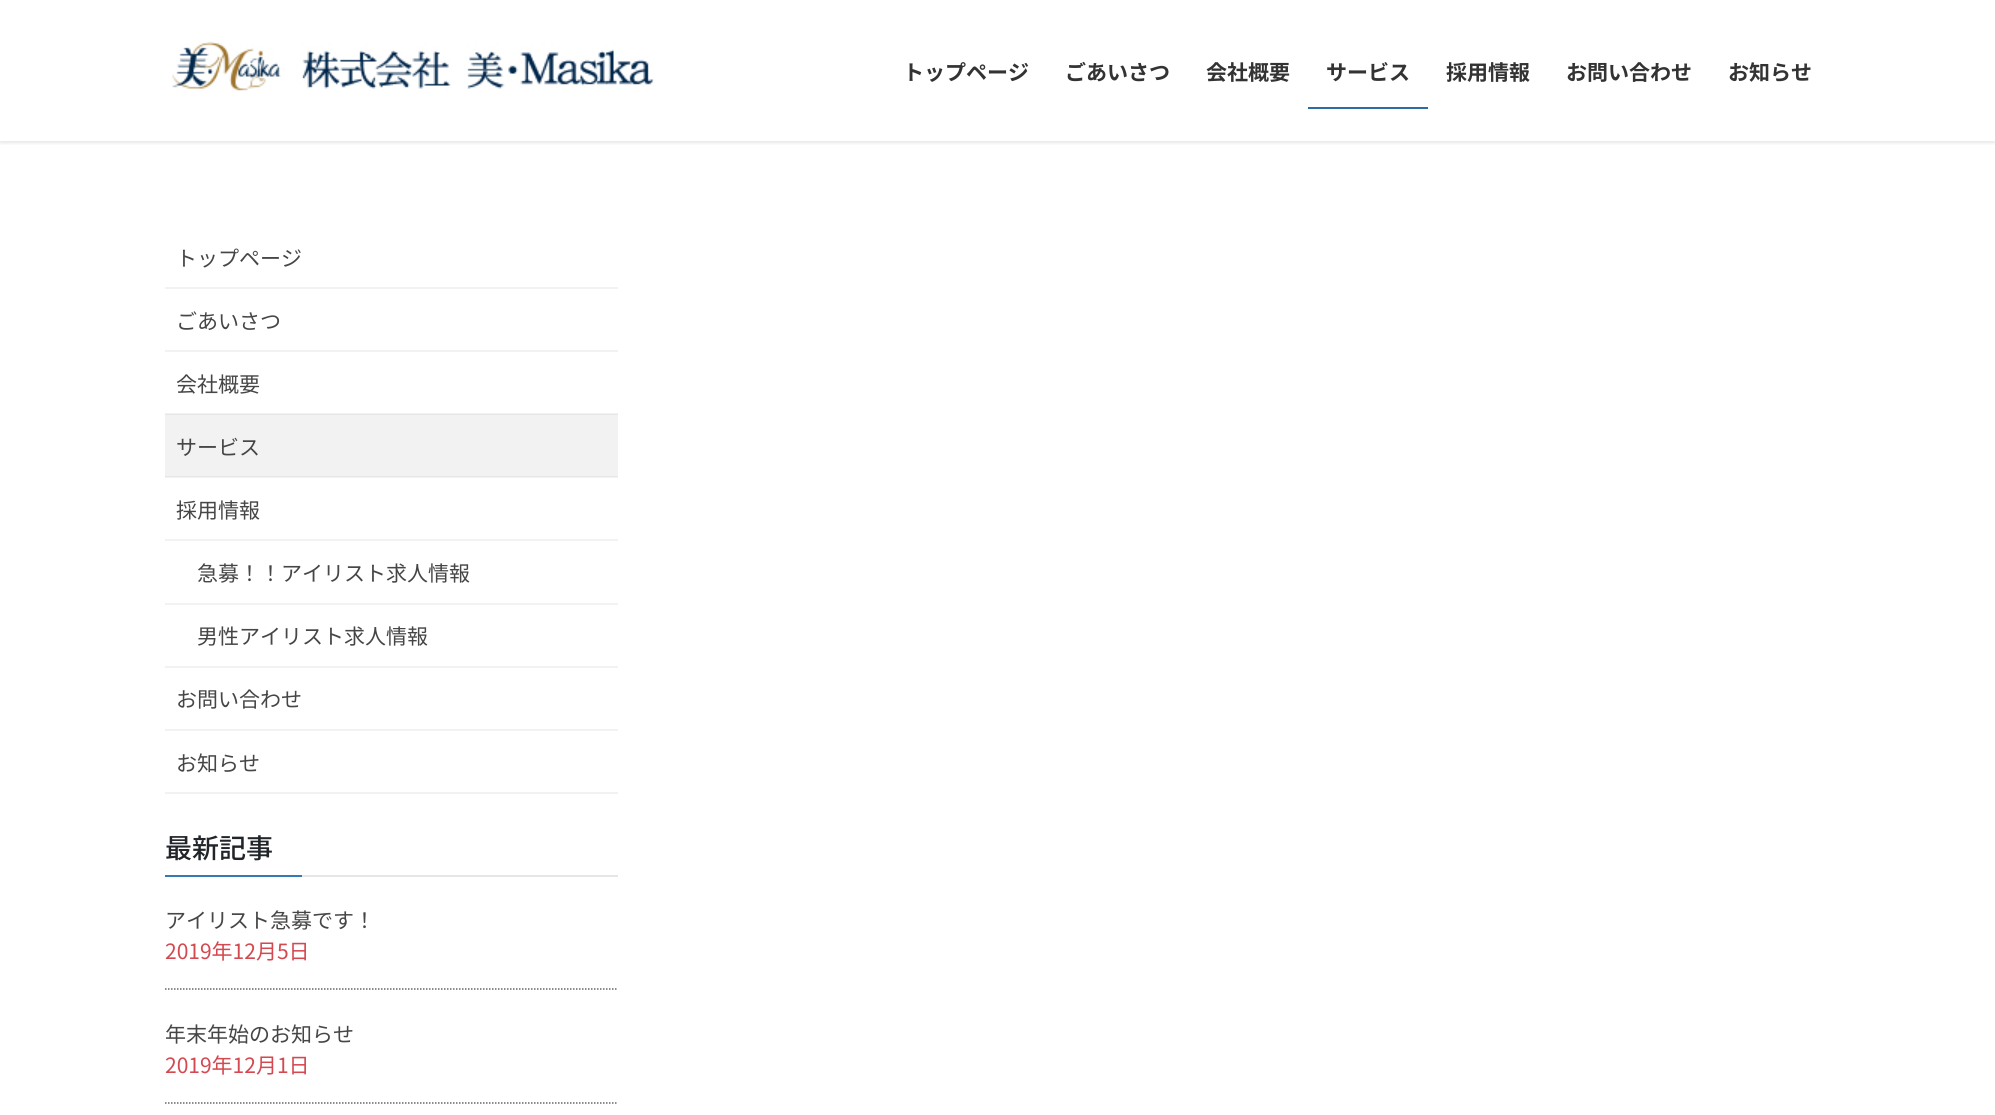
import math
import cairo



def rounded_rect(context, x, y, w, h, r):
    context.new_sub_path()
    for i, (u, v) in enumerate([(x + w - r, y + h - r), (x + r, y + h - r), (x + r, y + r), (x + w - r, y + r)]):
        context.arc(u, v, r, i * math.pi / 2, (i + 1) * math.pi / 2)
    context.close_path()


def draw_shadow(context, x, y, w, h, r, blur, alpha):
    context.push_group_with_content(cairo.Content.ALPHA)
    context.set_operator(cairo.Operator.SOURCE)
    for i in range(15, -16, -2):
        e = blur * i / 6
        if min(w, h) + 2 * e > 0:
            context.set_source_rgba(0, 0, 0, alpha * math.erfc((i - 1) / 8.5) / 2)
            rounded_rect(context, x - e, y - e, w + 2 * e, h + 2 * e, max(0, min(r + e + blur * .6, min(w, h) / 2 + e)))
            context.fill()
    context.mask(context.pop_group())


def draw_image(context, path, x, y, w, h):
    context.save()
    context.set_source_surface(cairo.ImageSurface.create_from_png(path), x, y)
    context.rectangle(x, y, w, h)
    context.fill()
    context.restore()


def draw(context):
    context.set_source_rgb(1, 1, 1)
    context.paint()
    context.set_source_rgb(242 / 255, 242 / 255, 242 / 255)
    context.rectangle(165, 477, 453, 1)
    context.fill()
    context.rectangle(165, 415, 453, 61)
    context.fill()
    context.set_source_rgb(230 / 255, 230 / 255, 230 / 255)
    context.rectangle(165, 476, 453, 1)
    context.fill()
    context.save()
    context.rectangle(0, 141, 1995, 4)
    context.clip()
    context.set_source_rgb(0, 0, 0)
    draw_shadow(context, 0, 2, 1995, 141, 0, 2, 0.1)
    context.restore()
    draw_image(context, "images/1.png", 172, 41, 482, 50)
    context.set_source_rgb(46 / 255, 109 / 255, 164 / 255)
    context.rectangle(1308, 107, 120, 2)
    context.fill()
    context.set_source_rgb(242 / 255, 242 / 255, 242 / 255)
    context.rectangle(165, 287, 453, 2)
    context.fill()
    context.rectangle(165, 350, 453, 2)
    context.fill()
    context.rectangle(165, 413, 453, 1)
    context.fill()
    context.set_source_rgb(230 / 255, 230 / 255, 230 / 255)
    context.rectangle(165, 414, 453, 1)
    context.fill()
    context.set_source_rgb(242 / 255, 242 / 255, 242 / 255)
    context.rectangle(165, 539, 453, 2)
    context.fill()
    context.rectangle(165, 603, 453, 2)
    context.fill()
    context.rectangle(165, 666, 453, 2)
    context.fill()
    context.rectangle(165, 729, 453, 2)
    context.fill()
    context.rectangle(165, 792, 453, 2)
    context.fill()
    context.set_source_rgb(230 / 255, 230 / 255, 230 / 255)
    context.rectangle(302, 875, 316, 2)
    context.fill()
    context.set_source_rgb(51 / 255, 122 / 255, 183 / 255)
    context.rectangle(165, 875, 137, 2)
    context.fill()
    context.new_path()
    context.move_to(165, 989)
    context.line_to(618, 989)
    context.set_source_rgb(102 / 255, 102 / 255, 102 / 255)
    context.set_line_width(1.5)
    context.set_dash([1.5, 1.5])
    context.stroke()
    context.new_path()
    context.move_to(165, 1103)
    context.line_to(618, 1103)
    context.stroke()
    context.select_font_face("Noto Sans JP", cairo.FontSlant.NORMAL, cairo.FontWeight.BOLD)
    context.set_font_size(21)
    context.set_source_rgb(51 / 255, 51 / 255, 51 / 255)
    context.move_to(903, 80)
    context.show_text("トップページ")
    context.move_to(1065, 80)
    context.show_text("ごあいさつ")
    context.move_to(1206, 80)
    context.show_text("会社概要")
    context.move_to(1326, 80)
    context.show_text("サービス")
    context.move_to(1446, 80)
    context.show_text("採用情報")
    context.move_to(1566, 80)
    context.show_text("お問い合わせ")
    context.move_to(1728, 80)
    context.show_text("お知らせ")
    context.select_font_face("Noto Sans JP")
    context.set_source_rgb(70 / 255, 70 / 255, 70 / 255)
    context.move_to(176, 266)
    context.show_text("トップページ")
    context.move_to(176, 329)
    context.show_text("ごあいさつ")
    context.move_to(176, 392)
    context.show_text("会社概要")
    context.move_to(176, 455)
    context.show_text("サービス")
    context.move_to(176, 518)
    context.show_text("採用情報")
    context.move_to(197, 581)
    context.show_text("急募！！アイリスト求人情報")
    context.move_to(197, 644)
    context.show_text("男性アイリスト求人情報")
    context.move_to(176, 707)
    context.show_text("お問い合わせ")
    context.move_to(176, 771)
    context.show_text("お知らせ")
    context.select_font_face("Noto Sans JP Medium")
    context.set_font_size(27)
    context.set_source_rgb(33 / 255, 37 / 255, 41 / 255)
    context.move_to(165, 858)
    context.show_text("最新記事")
    context.select_font_face("Noto Sans JP")
    context.set_font_size(21)
    context.set_source_rgb(70 / 255, 70 / 255, 70 / 255)
    context.move_to(165, 928)
    context.show_text("アイリスト急募です！")
    context.set_source_rgb(212 / 255, 73 / 255, 80 / 255)
    context.move_to(165, 959)
    context.show_text("2019年12月5日")
    context.set_source_rgb(70 / 255, 70 / 255, 70 / 255)
    context.move_to(165, 1042)
    context.show_text("年末年始のお知らせ")
    context.set_source_rgb(212 / 255, 73 / 255, 80 / 255)
    context.move_to(165, 1073)
    context.show_text("2019年12月1日")


surface = cairo.ImageSurface(cairo.Format.RGB24, 1995, 1115)
context = cairo.Context(surface)
options = cairo.FontOptions()
options.set_hint_metrics(cairo.HintMetrics.OFF)
options.set_hint_style(cairo.HintStyle.NONE)
context.set_font_options(options)
context.set_miter_limit(4)
draw(context)
surface.write_to_png("out.png")
